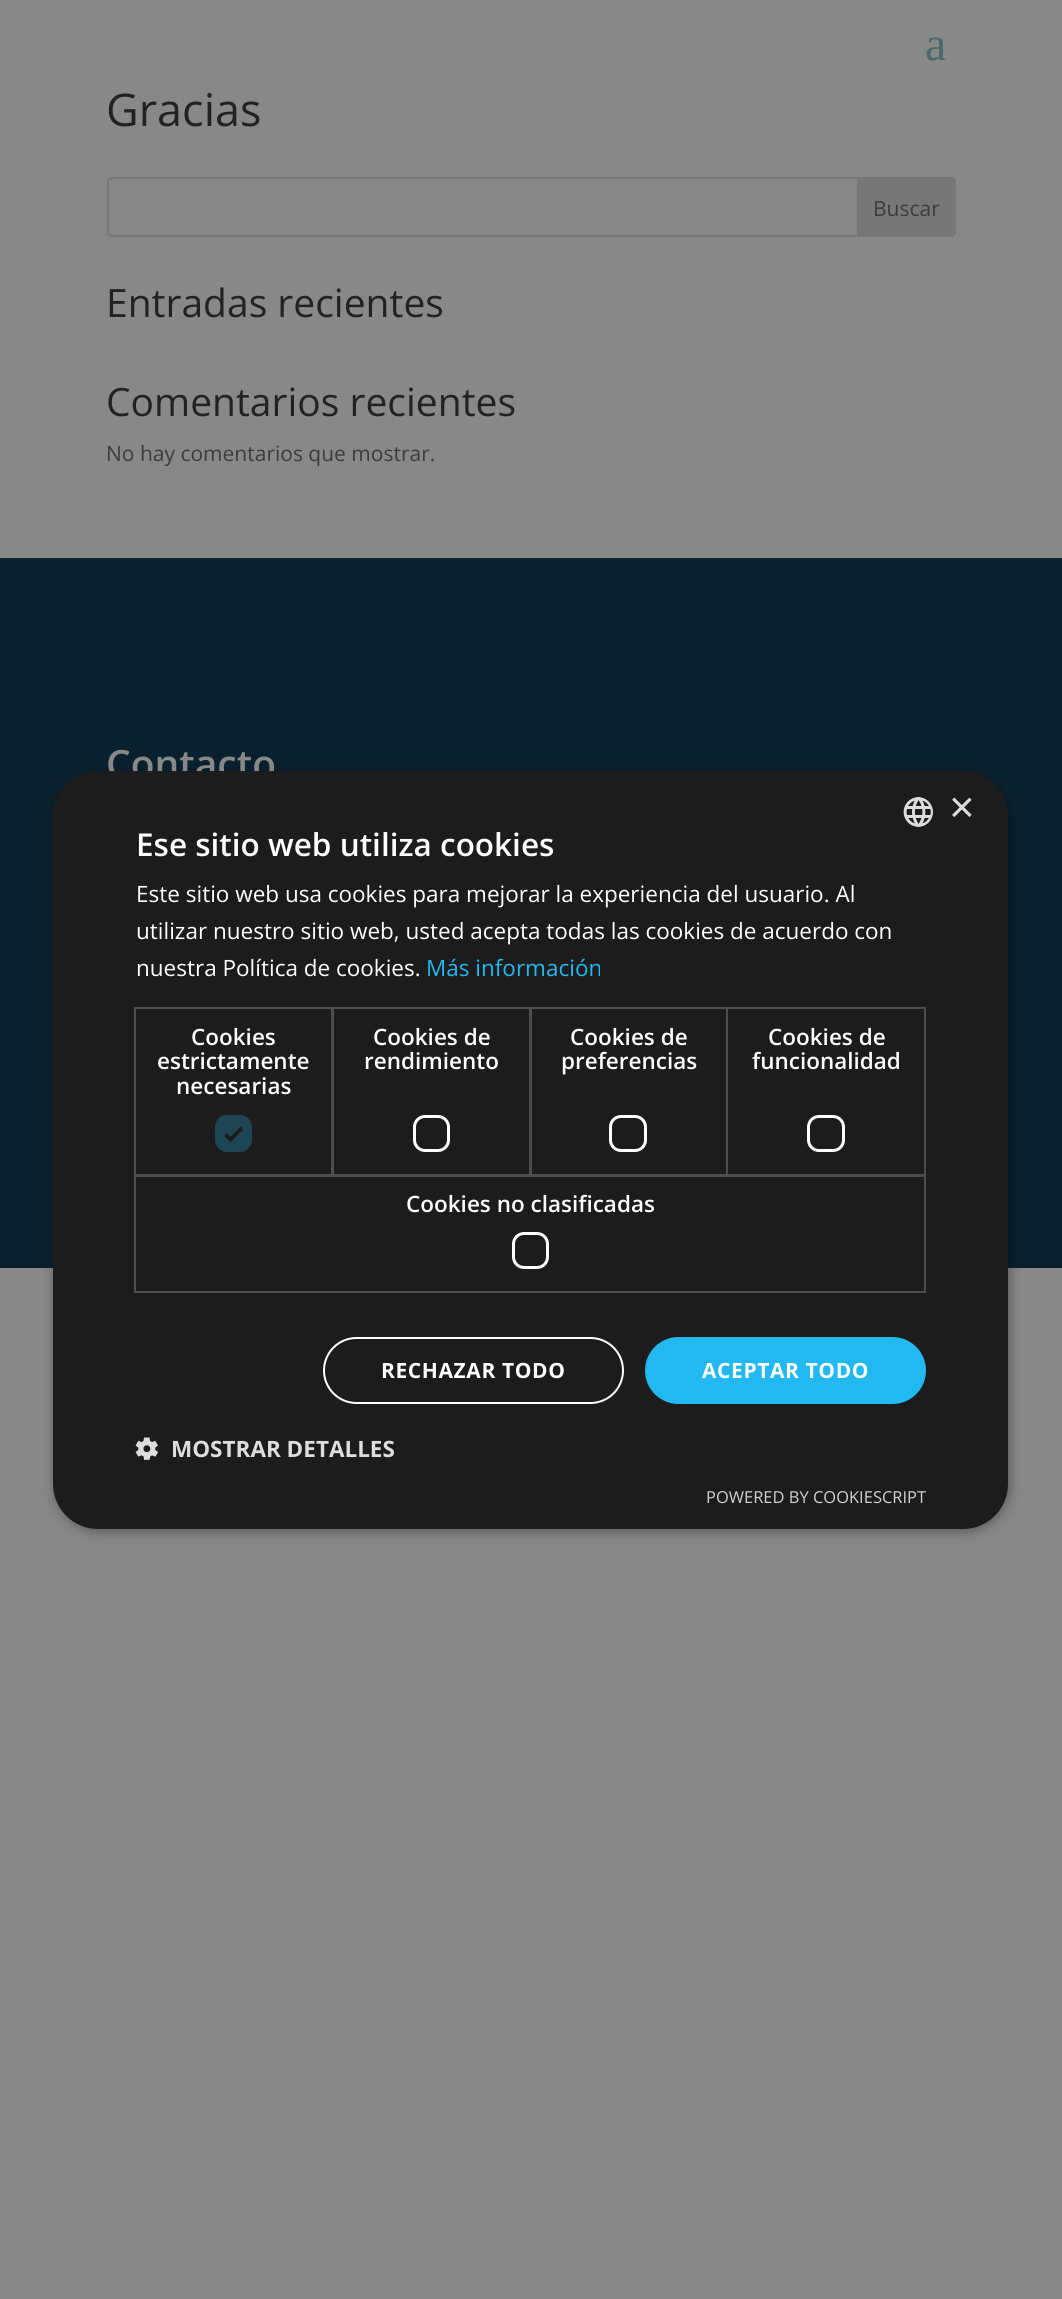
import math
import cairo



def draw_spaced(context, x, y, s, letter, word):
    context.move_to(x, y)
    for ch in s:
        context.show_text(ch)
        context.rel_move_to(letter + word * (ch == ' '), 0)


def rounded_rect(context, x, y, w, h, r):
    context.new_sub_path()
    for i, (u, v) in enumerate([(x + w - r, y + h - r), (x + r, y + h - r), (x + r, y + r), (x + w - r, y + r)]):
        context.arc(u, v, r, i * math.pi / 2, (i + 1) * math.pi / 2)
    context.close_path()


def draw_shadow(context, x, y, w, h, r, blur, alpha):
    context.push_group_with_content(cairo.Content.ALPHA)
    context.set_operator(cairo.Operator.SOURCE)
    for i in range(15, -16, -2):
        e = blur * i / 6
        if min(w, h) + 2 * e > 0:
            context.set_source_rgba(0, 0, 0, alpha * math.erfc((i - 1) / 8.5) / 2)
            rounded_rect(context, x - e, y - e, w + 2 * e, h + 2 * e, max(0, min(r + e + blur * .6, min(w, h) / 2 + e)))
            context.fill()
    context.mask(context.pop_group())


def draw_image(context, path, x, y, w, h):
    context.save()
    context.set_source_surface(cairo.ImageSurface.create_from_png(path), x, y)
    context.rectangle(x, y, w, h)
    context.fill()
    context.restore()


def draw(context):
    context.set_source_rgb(136 / 255, 136 / 255, 136 / 255)
    context.paint()
    rounded_rect(context, 108, 178, 847, 58, 4)
    context.set_source_rgb(119 / 255, 119 / 255, 119 / 255)
    context.stroke()
    context.new_path()
    context.move_to(857, 177)
    context.line_to(951, 177)
    context.curve_to(954, 177, 956, 179, 956, 182)
    context.line_to(956, 232)
    context.curve_to(956, 235, 954, 237, 951, 237)
    context.line_to(857, 237)
    context.close_path()
    context.fill()
    context.set_source_rgb(9 / 255, 33 / 255, 47 / 255)
    context.rectangle(0, 558, 1062, 710)
    context.fill()
    context.set_source_rgb(0, 0, 0)
    draw_shadow(context, 54, 774, 956, 758, 45, 6, 0.35)
    context.select_font_face("Liberation Serif")
    context.set_font_size(48)
    context.set_source_rgb(72 / 255, 104 / 255, 107 / 255)
    context.move_to(925, 60)
    context.show_text("a")
    context.select_font_face("Open Sans")
    context.set_font_size(45)
    context.set_source_rgb(34 / 255, 34 / 255, 34 / 255)
    context.move_to(106, 126)
    context.show_text("Gracias")
    context.set_font_size(21)
    context.set_source_rgb(60 / 255, 60 / 255, 60 / 255)
    context.move_to(873, 216)
    context.show_text("Buscar")
    context.set_font_size(39)
    context.set_source_rgb(34 / 255, 34 / 255, 34 / 255)
    context.move_to(106, 317)
    context.show_text("Entradas recientes")
    context.move_to(106, 416)
    context.show_text("Comentarios recientes")
    context.set_font_size(21)
    context.set_source_rgb(60 / 255, 60 / 255, 60 / 255)
    context.move_to(106, 461)
    context.show_text("No hay comentarios que mostrar.")
    context.select_font_face("Open Sans SemiBold")
    context.set_font_size(39)
    context.set_source_rgb(136 / 255, 136 / 255, 136 / 255)
    context.move_to(106, 778)
    context.show_text("Contacto")
    context.set_source_rgb(28 / 255, 28 / 255, 28 / 255)
    rounded_rect(context, 53, 771, 955, 758, 45)
    context.fill()
    draw_image(context, "images/1.png", 903, 797, 30, 30)
    context.select_font_face("Liberation Sans")
    context.set_font_size(44)
    context.set_source_rgb(221 / 255, 221 / 255, 221 / 255)
    context.move_to(949, 822)
    context.show_text("×")
    context.select_font_face("Open Sans SemiBold")
    context.set_font_size(31.5)
    context.set_source_rgb(1, 1, 1)
    context.move_to(136, 856)
    context.show_text("Ese sitio web utiliza cookies")
    context.select_font_face("Open Sans")
    context.set_font_size(22.5)
    context.move_to(136, 902)
    context.show_text("Este sitio web usa cookies para mejorar la experiencia del usuario. Al")
    context.move_to(136, 939)
    context.show_text("utilizar nuestro sitio web, usted acepta todas las cookies de acuerdo con")
    context.move_to(136, 976)
    context.show_text("nuestra Política de cookies.")
    context.set_source_rgb(34 / 255, 184 / 255, 240 / 255)
    context.move_to(426, 976)
    context.show_text("Más información")
    context.rectangle(135, 1008, 197, 167)
    context.set_source_rgb(77 / 255, 77 / 255, 77 / 255)
    context.stroke()
    context.select_font_face("Open Sans SemiBold")
    context.set_source_rgb(1, 1, 1)
    context.move_to(191, 1045)
    context.show_text("Cookies")
    context.move_to(157, 1069)
    context.show_text("estrictamente")
    context.move_to(176, 1094)
    context.show_text("necesarias")
    context.set_source_rgb(30 / 255, 69 / 255, 83 / 255)
    rounded_rect(context, 215, 1115, 37, 37, 12)
    context.fill()
    context.new_path()
    context.move_to(225.5, 1134.5)
    context.line_to(230.5, 1139.5)
    context.line_to(242, 1128)
    context.set_source_rgb(28 / 255, 28 / 255, 28 / 255)
    context.set_line_width(3.9)
    context.stroke()
    context.rectangle(333, 1008, 197, 167)
    context.set_source_rgb(77 / 255, 77 / 255, 77 / 255)
    context.set_line_width(2)
    context.stroke()
    context.set_source_rgb(1, 1, 1)
    context.move_to(373, 1045)
    context.show_text("Cookies de")
    context.move_to(364, 1069)
    context.show_text("rendimiento")
    rounded_rect(context, 414.5, 1116.5, 34, 34, 10.5)
    context.set_line_width(3)
    context.stroke()
    context.rectangle(531, 1008, 196, 167)
    context.set_source_rgb(77 / 255, 77 / 255, 77 / 255)
    context.set_line_width(2)
    context.stroke()
    context.set_source_rgb(1, 1, 1)
    context.move_to(570, 1045)
    context.show_text("Cookies de")
    context.move_to(561, 1069)
    context.show_text("preferencias")
    rounded_rect(context, 610.5, 1116.5, 35, 34, 10.5)
    context.set_line_width(3)
    context.stroke()
    context.rectangle(727, 1008, 198, 167)
    context.set_source_rgb(77 / 255, 77 / 255, 77 / 255)
    context.set_line_width(2)
    context.stroke()
    context.set_source_rgb(1, 1, 1)
    context.move_to(768, 1045)
    context.show_text("Cookies de")
    context.move_to(752, 1069)
    context.show_text("funcionalidad")
    rounded_rect(context, 808.5, 1116.5, 35, 34, 10.5)
    context.set_line_width(3)
    context.stroke()
    context.rectangle(135, 1176, 790, 116)
    context.set_source_rgb(77 / 255, 77 / 255, 77 / 255)
    context.set_line_width(2)
    context.stroke()
    context.set_source_rgb(1, 1, 1)
    context.move_to(406, 1212)
    context.show_text("Cookies no clasificadas")
    rounded_rect(context, 513.5, 1233.5, 34, 34, 10.5)
    context.set_line_width(3)
    context.stroke()
    rounded_rect(context, 324, 1338, 299, 65, 32.5)
    context.set_line_width(2)
    context.stroke()
    context.select_font_face("Open Sans", cairo.FontSlant.NORMAL, cairo.FontWeight.BOLD)
    context.set_font_size(21)
    draw_spaced(context, 381, 1378, "RECHAZAR TODO", 0.6, 0)
    context.set_source_rgb(34 / 255, 184 / 255, 240 / 255)
    rounded_rect(context, 645, 1337, 281, 67, 33.5)
    context.fill()
    context.set_source_rgb(1, 1, 1)
    draw_spaced(context, 702, 1378, "ACEPTAR TODO", 0.6, 0)
    draw_image(context, "images/2.png", 135, 1437, 23, 23)
    context.set_font_size(22.5)
    context.set_source_rgb(221 / 255, 221 / 255, 221 / 255)
    context.move_to(171, 1457)
    context.show_text("MOSTRAR DETALLES")
    context.select_font_face("Open Sans")
    context.set_font_size(16.5)
    context.set_source_rgb(210 / 255, 210 / 255, 210 / 255)
    context.move_to(706, 1503)
    context.show_text("POWERED BY COOKIESCRIPT")


surface = cairo.ImageSurface(cairo.Format.RGB24, 1062, 2299)
context = cairo.Context(surface)
options = cairo.FontOptions()
options.set_hint_metrics(cairo.HintMetrics.OFF)
options.set_hint_style(cairo.HintStyle.NONE)
context.set_font_options(options)
context.set_miter_limit(4)
draw(context)
surface.write_to_png("out.png")
